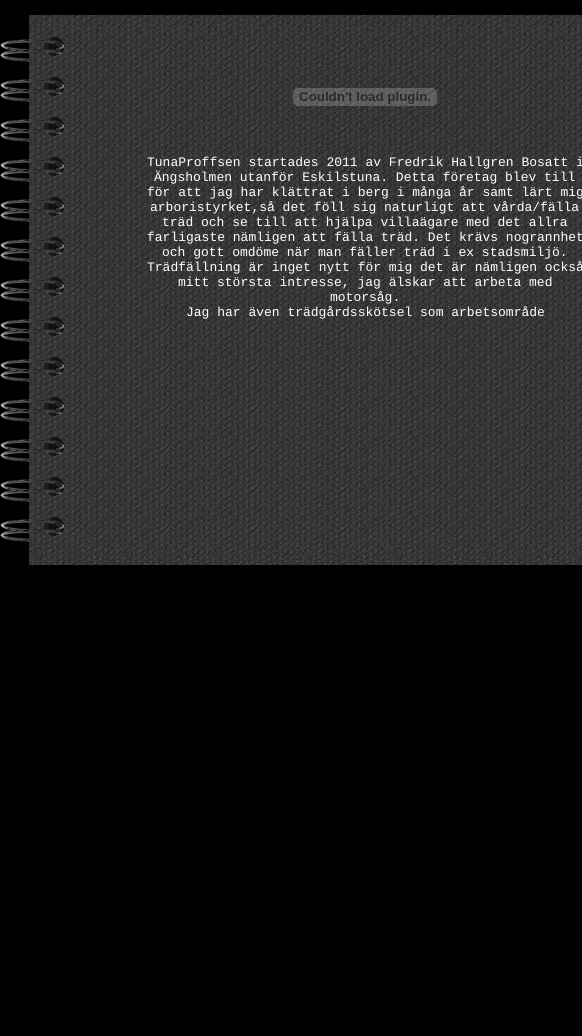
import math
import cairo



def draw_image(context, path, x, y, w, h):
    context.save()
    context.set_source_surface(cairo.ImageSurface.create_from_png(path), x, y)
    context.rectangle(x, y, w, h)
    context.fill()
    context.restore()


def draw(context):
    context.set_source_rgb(0, 0, 0)
    context.paint()
    draw_image(context, "images/1.png", 29, 15, 553, 15)
    draw_image(context, "images/2.png", 0, 30, 582, 520)
    draw_image(context, "images/3.png", 293, 88, 144, 18)
    draw_image(context, "images/4.png", 29, 550, 553, 15)
    context.select_font_face("Liberation Mono")
    context.set_font_size(13)
    context.set_source_rgb(1, 1, 1)
    context.move_to(147, 166)
    context.show_text("TunaProffsen startades 2011 av Fredrik Hallgren Bosatt i")
    context.move_to(154, 181)
    context.show_text("Ängsholmen utanför Eskilstuna. Detta företag blev till")
    context.move_to(147, 196)
    context.show_text("för att jag har klättrat i berg i många år samt lärt mig")
    context.move_to(150, 211)
    context.show_text("arboristyrket,så det föll sig naturligt att vårda/fälla")
    context.move_to(162, 226)
    context.show_text("träd och se till att hjälpa villaägare med det allra")
    context.move_to(147, 241)
    context.show_text("farligaste nämligen att fälla träd. Det krävs nogrannhet")
    context.move_to(162, 256)
    context.show_text("och gott omdöme när man fäller träd i ex stadsmiljö.")
    context.move_to(147, 271)
    context.show_text("Trädfällning är inget nytt för mig det är nämligen också")
    context.move_to(178, 286)
    context.show_text("mitt största intresse, jag älskar att arbeta med")
    context.move_to(330, 301)
    context.show_text("motorsåg.")
    context.move_to(186, 316)
    context.show_text("Jag har även trädgårdsskötsel som arbetsområde")


surface = cairo.ImageSurface(cairo.Format.RGB24, 582, 1036)
context = cairo.Context(surface)
options = cairo.FontOptions()
options.set_hint_metrics(cairo.HintMetrics.OFF)
options.set_hint_style(cairo.HintStyle.NONE)
context.set_font_options(options)
context.set_miter_limit(4)
draw(context)
surface.write_to_png("out.png")
